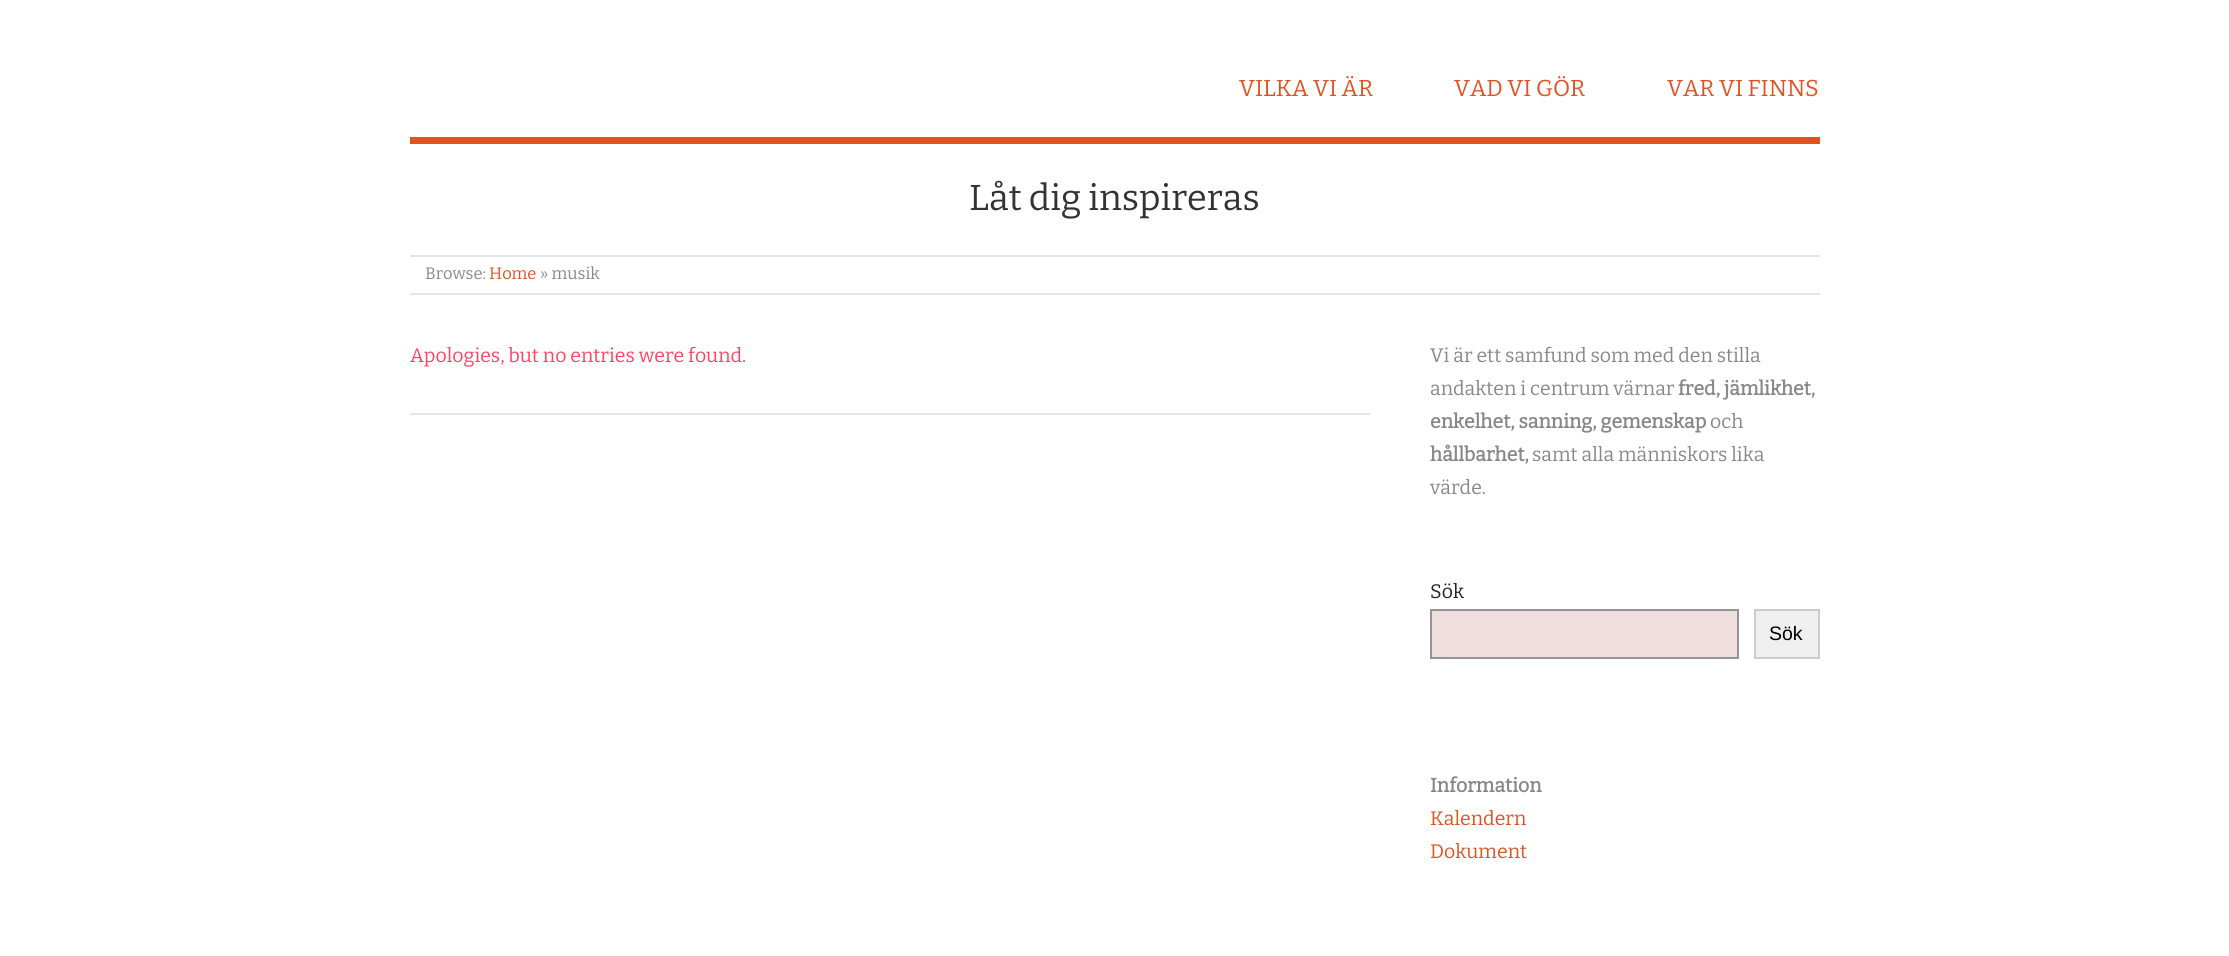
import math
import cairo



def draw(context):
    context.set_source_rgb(1, 1, 1)
    context.paint()
    context.set_source_rgb(221 / 255, 84 / 255, 36 / 255)
    context.rectangle(410, 137, 1410, 7)
    context.fill()
    context.set_source_rgb(229 / 255, 229 / 255, 229 / 255)
    context.rectangle(410, 255, 1410, 2)
    context.fill()
    context.rectangle(410, 293, 1410, 2)
    context.fill()
    context.rectangle(410, 413, 960, 2)
    context.fill()
    context.set_source_rgb(240 / 255, 221 / 255, 221 / 255)
    context.rectangle(1431, 610, 307, 48)
    context.fill_preserve()
    context.set_source_rgb(148 / 255, 148 / 255, 148 / 255)
    context.stroke()
    context.set_source_rgb(239 / 255, 239 / 255, 239 / 255)
    context.rectangle(1755, 610, 64, 48)
    context.fill_preserve()
    context.set_source_rgb(204 / 255, 204 / 255, 204 / 255)
    context.stroke()
    context.select_font_face("Bitter Thin")
    context.set_font_size(23)
    context.set_source_rgb(221 / 255, 84 / 255, 36 / 255)
    context.move_to(1239, 96)
    context.show_text("VILKA VI ÄR")
    context.move_to(1454, 96)
    context.show_text("VAD VI GÖR")
    context.move_to(1667, 96)
    context.show_text("VAR VI FINNS")
    context.set_font_size(36)
    context.set_source_rgb(51 / 255, 51 / 255, 51 / 255)
    context.move_to(969, 210)
    context.show_text("Låt dig inspireras")
    context.set_font_size(16.5)
    context.set_source_rgb(136 / 255, 136 / 255, 136 / 255)
    context.move_to(425, 279)
    context.show_text("Browse:")
    context.set_source_rgb(221 / 255, 84 / 255, 36 / 255)
    context.move_to(489, 279)
    context.show_text("Home")
    context.set_source_rgb(136 / 255, 136 / 255, 136 / 255)
    context.move_to(540, 279)
    context.show_text("» musik")
    context.set_font_size(19.5)
    context.set_source_rgb(1, 67 / 255, 103 / 255)
    context.move_to(410, 362)
    context.show_text("Apologies, but no entries were found.")
    context.set_source_rgb(136 / 255, 136 / 255, 136 / 255)
    context.move_to(1430, 362)
    context.show_text("Vi är ett samfund som med den stilla")
    context.move_to(1430, 395)
    context.show_text("andakten i centrum värnar")
    context.select_font_face("Bitter", cairo.FontSlant.NORMAL, cairo.FontWeight.BOLD)
    context.move_to(1678, 395)
    context.show_text("fred, jämlikhet,")
    context.move_to(1430, 428)
    context.show_text("enkelhet, sanning, gemenskap")
    context.select_font_face("Bitter Thin")
    context.move_to(1710, 428)
    context.show_text("och")
    context.select_font_face("Bitter", cairo.FontSlant.NORMAL, cairo.FontWeight.BOLD)
    context.move_to(1430, 461)
    context.show_text("hållbarhet,")
    context.select_font_face("Bitter Thin")
    context.move_to(1532, 461)
    context.show_text("samt alla människors lika")
    context.move_to(1430, 494)
    context.show_text("värde.")
    context.set_source_rgb(34 / 255, 34 / 255, 34 / 255)
    context.move_to(1430, 598)
    context.show_text("Sök")
    context.select_font_face("Liberation Sans")
    context.set_source_rgb(0, 0, 0)
    context.move_to(1769, 640)
    context.show_text("Sök")
    context.select_font_face("Bitter", cairo.FontSlant.NORMAL, cairo.FontWeight.BOLD)
    context.set_source_rgb(136 / 255, 136 / 255, 136 / 255)
    context.move_to(1430, 792)
    context.show_text("Information")
    context.select_font_face("Bitter Thin")
    context.set_source_rgb(221 / 255, 84 / 255, 36 / 255)
    context.move_to(1430, 825)
    context.show_text("Kalendern")
    context.move_to(1430, 858)
    context.show_text("Dokument")


surface = cairo.ImageSurface(cairo.Format.RGB24, 2229, 956)
context = cairo.Context(surface)
options = cairo.FontOptions()
options.set_hint_metrics(cairo.HintMetrics.OFF)
options.set_hint_style(cairo.HintStyle.NONE)
context.set_font_options(options)
context.set_miter_limit(4)
draw(context)
surface.write_to_png("out.png")
